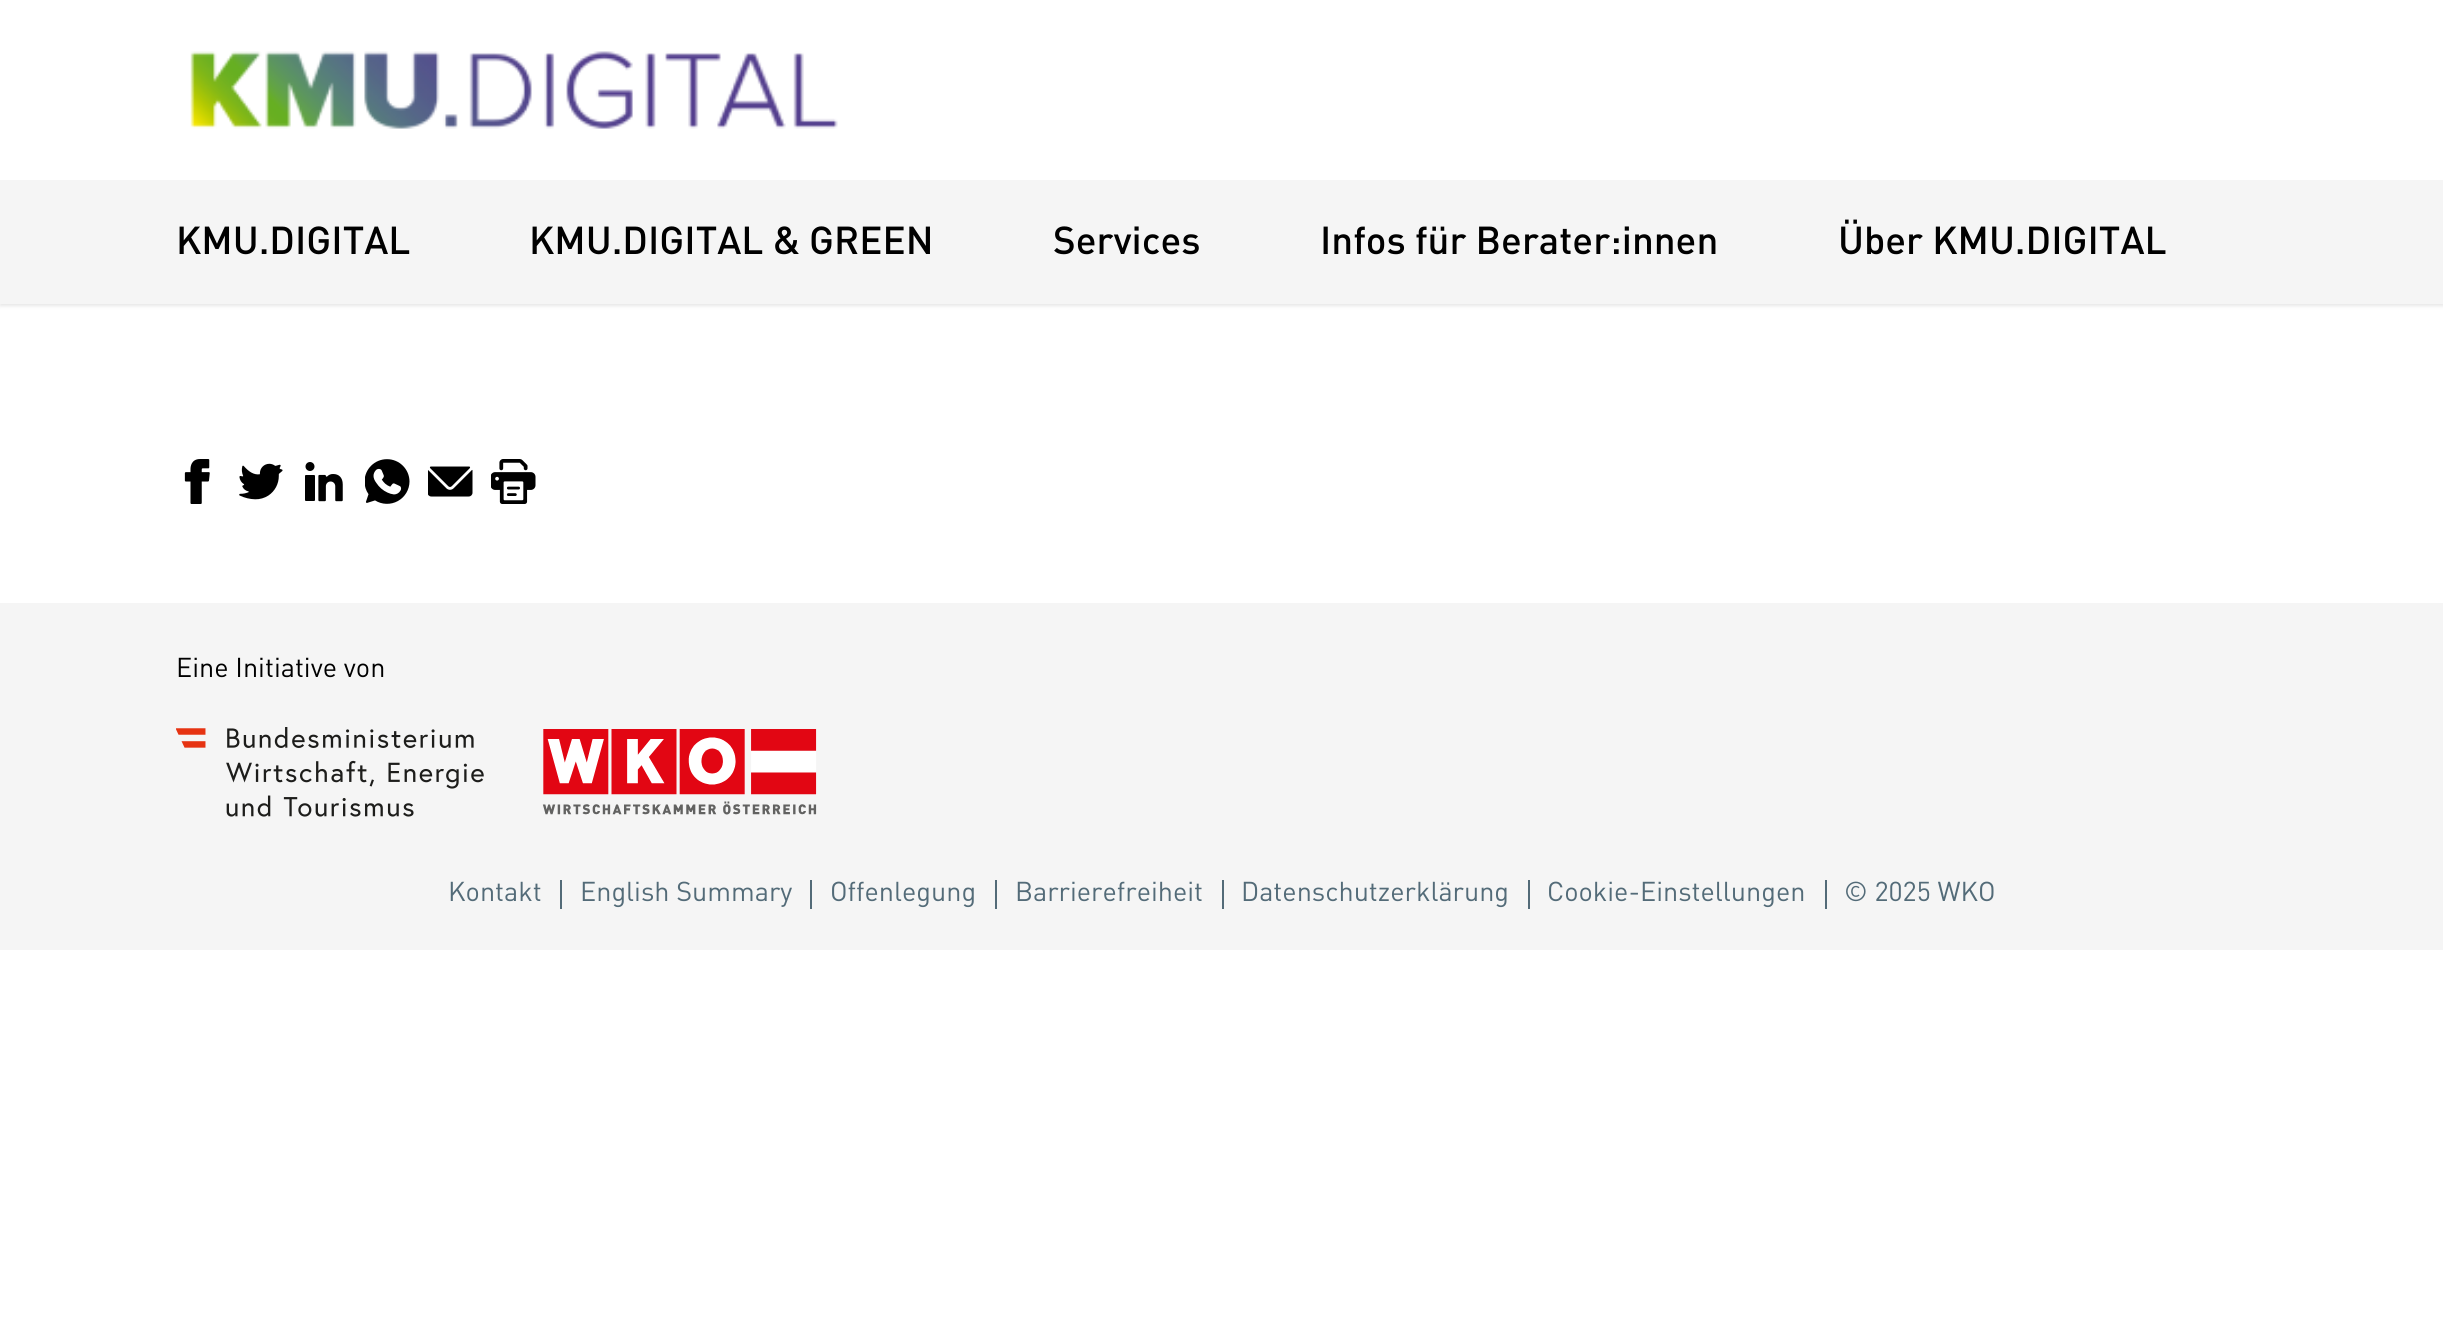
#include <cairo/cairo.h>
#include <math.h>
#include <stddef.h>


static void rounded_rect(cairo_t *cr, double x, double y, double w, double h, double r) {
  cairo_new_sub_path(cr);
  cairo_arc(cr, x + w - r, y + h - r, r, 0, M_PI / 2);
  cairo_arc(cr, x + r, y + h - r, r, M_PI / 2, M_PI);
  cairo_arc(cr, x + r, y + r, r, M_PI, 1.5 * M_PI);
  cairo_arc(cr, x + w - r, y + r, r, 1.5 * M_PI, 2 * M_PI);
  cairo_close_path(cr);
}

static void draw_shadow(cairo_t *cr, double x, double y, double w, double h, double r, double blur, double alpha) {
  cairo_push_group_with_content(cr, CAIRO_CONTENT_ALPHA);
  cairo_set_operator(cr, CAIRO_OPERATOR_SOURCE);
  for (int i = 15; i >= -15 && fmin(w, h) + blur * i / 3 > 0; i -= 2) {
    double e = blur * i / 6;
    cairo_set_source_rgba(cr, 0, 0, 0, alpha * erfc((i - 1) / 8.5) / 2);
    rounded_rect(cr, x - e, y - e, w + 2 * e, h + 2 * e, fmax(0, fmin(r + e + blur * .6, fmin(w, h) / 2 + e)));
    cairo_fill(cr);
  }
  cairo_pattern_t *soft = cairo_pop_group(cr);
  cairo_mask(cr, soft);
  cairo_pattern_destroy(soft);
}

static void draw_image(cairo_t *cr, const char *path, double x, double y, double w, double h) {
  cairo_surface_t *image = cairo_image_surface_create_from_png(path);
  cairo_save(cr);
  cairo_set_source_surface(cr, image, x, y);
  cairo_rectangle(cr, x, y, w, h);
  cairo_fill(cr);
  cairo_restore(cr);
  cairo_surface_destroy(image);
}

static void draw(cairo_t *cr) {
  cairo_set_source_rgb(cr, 1, 1, 1);
  cairo_paint(cr);
  cairo_set_source_rgb(cr, 0, 0, 0);
  draw_shadow(cr, 0, 2, 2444, 304, 0, 2, 0.1);
  cairo_set_source_rgb(cr, 1, 1, 1);
  cairo_rectangle(cr, 0, 0, 2443, 180);
  cairo_fill(cr);
  draw_image(cr, "images/1.png", 190, 51, 648, 78);
  cairo_set_source_rgb(cr, 245 / 255.0, 245 / 255.0, 245 / 255.0);
  cairo_rectangle(cr, 0, 180, 2443, 124);
  cairo_fill(cr);
  draw_image(cr, "images/2.png", 184, 459, 26, 45);
  draw_image(cr, "images/3.png", 239, 463, 44, 37);
  draw_image(cr, "images/4.png", 305, 462, 38, 40);
  draw_image(cr, "images/5.png", 365, 459, 45, 45);
  draw_image(cr, "images/6.png", 428, 466, 45, 31);
  draw_image(cr, "images/7.png", 491, 459, 45, 45);
  cairo_rectangle(cr, 0, 603, 2443, 347);
  cairo_fill(cr);
  draw_image(cr, "images/8.png", 176, 727, 308, 90);
  draw_image(cr, "images/9.png", 542, 729, 275, 86);
  cairo_set_source_rgb(cr, 83 / 255.0, 107 / 255.0, 120 / 255.0);
  cairo_rectangle(cr, 560, 880, 2, 29);
  cairo_fill(cr);
  cairo_rectangle(cr, 810, 880, 2, 29);
  cairo_fill(cr);
  cairo_rectangle(cr, 995, 880, 2, 29);
  cairo_fill(cr);
  cairo_rectangle(cr, 1222, 880, 2, 29);
  cairo_fill(cr);
  cairo_rectangle(cr, 1528, 880, 2, 29);
  cairo_fill(cr);
  cairo_rectangle(cr, 1825, 880, 2, 29);
  cairo_fill(cr);
  cairo_select_font_face(cr, "DIN Medium", CAIRO_FONT_SLANT_NORMAL, CAIRO_FONT_WEIGHT_NORMAL);
  cairo_set_font_size(cr, 38.5);
  cairo_set_source_rgb(cr, 0, 0, 0);
  cairo_move_to(cr, 176, 254);
  cairo_show_text(cr, "KMU.DIGITAL");
  cairo_move_to(cr, 529, 254);
  cairo_show_text(cr, "KMU.DIGITAL & GREEN");
  cairo_move_to(cr, 1053, 254);
  cairo_show_text(cr, "Services");
  cairo_move_to(cr, 1320, 254);
  cairo_show_text(cr, "Infos für Berater:innen");
  cairo_move_to(cr, 1838, 254);
  cairo_show_text(cr, "Über KMU.DIGITAL");
  cairo_select_font_face(cr, "DIN", CAIRO_FONT_SLANT_NORMAL, CAIRO_FONT_WEIGHT_NORMAL);
  cairo_set_font_size(cr, 27);
  cairo_move_to(cr, 176, 677);
  cairo_show_text(cr, "Eine Initiative von");
  cairo_set_source_rgb(cr, 83 / 255.0, 107 / 255.0, 120 / 255.0);
  cairo_move_to(cr, 448, 901);
  cairo_show_text(cr, "Kontakt");
  cairo_move_to(cr, 580, 901);
  cairo_show_text(cr, "English Summary");
  cairo_move_to(cr, 830, 901);
  cairo_show_text(cr, "Offenlegung");
  cairo_move_to(cr, 1015, 901);
  cairo_show_text(cr, "Barrierefreiheit");
  cairo_move_to(cr, 1241, 901);
  cairo_show_text(cr, "Datenschutzerklärung");
  cairo_move_to(cr, 1547, 901);
  cairo_show_text(cr, "Cookie-Einstellungen");
  cairo_move_to(cr, 1844, 901);
  cairo_show_text(cr, "© 2025 WKO");
}

int main(void) {
  cairo_surface_t *surface = cairo_image_surface_create(CAIRO_FORMAT_RGB24, 2443, 1319);
  cairo_t *cr = cairo_create(surface);
  cairo_font_options_t *options = cairo_font_options_create();
  cairo_font_options_set_hint_metrics(options, CAIRO_HINT_METRICS_OFF);
  cairo_font_options_set_hint_style(options, CAIRO_HINT_STYLE_NONE);
  cairo_set_font_options(cr, options);
  cairo_set_miter_limit(cr, 4);
  draw(cr);
  cairo_surface_write_to_png(surface, "out.png");
  cairo_font_options_destroy(options);
  cairo_destroy(cr);
  cairo_surface_destroy(surface);
  return 0;
}
